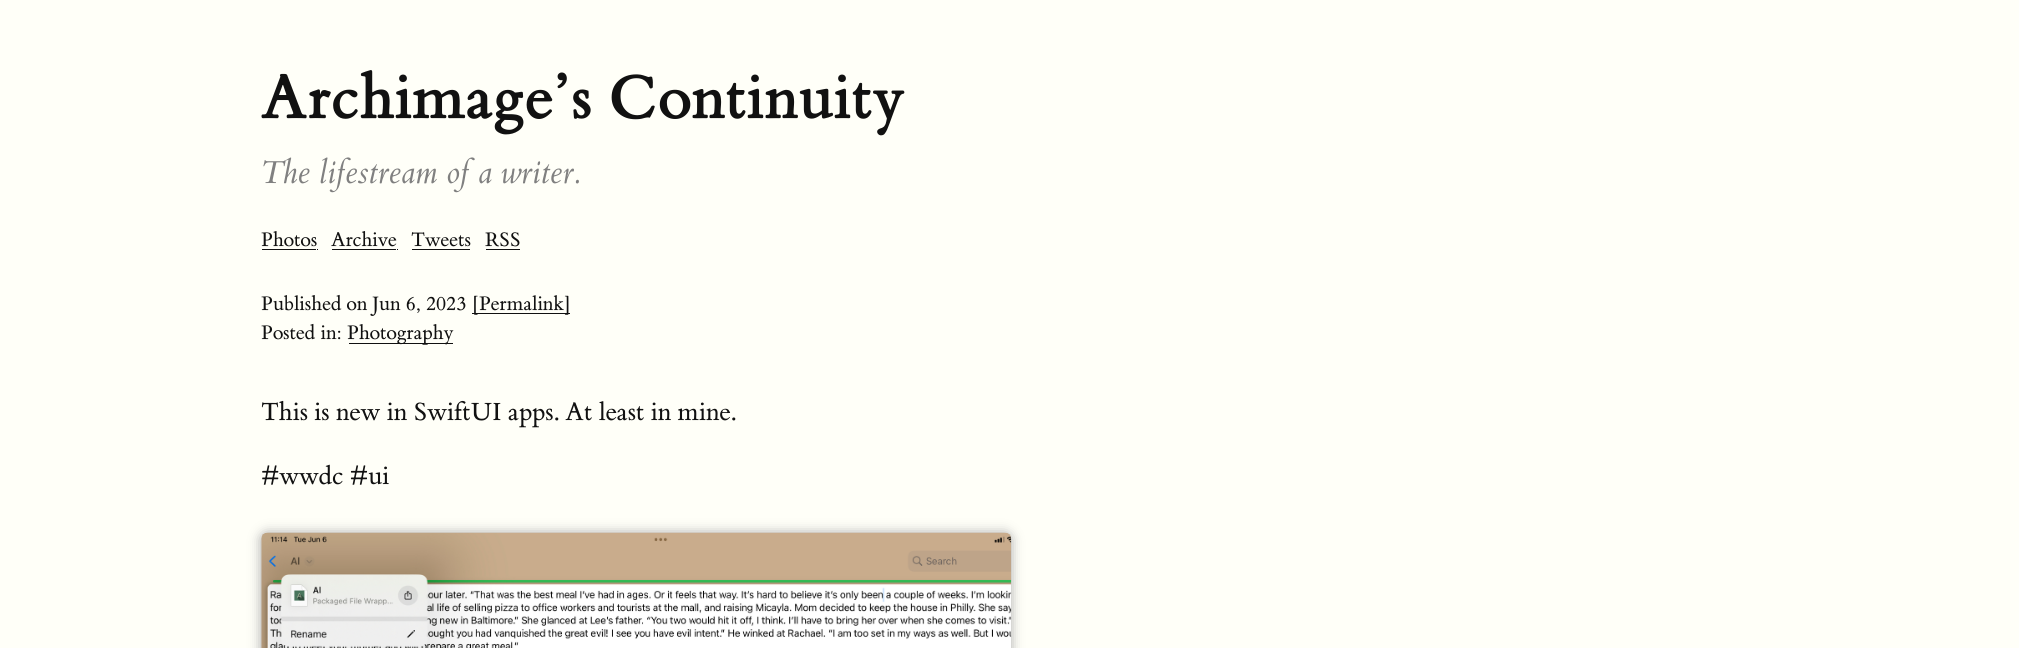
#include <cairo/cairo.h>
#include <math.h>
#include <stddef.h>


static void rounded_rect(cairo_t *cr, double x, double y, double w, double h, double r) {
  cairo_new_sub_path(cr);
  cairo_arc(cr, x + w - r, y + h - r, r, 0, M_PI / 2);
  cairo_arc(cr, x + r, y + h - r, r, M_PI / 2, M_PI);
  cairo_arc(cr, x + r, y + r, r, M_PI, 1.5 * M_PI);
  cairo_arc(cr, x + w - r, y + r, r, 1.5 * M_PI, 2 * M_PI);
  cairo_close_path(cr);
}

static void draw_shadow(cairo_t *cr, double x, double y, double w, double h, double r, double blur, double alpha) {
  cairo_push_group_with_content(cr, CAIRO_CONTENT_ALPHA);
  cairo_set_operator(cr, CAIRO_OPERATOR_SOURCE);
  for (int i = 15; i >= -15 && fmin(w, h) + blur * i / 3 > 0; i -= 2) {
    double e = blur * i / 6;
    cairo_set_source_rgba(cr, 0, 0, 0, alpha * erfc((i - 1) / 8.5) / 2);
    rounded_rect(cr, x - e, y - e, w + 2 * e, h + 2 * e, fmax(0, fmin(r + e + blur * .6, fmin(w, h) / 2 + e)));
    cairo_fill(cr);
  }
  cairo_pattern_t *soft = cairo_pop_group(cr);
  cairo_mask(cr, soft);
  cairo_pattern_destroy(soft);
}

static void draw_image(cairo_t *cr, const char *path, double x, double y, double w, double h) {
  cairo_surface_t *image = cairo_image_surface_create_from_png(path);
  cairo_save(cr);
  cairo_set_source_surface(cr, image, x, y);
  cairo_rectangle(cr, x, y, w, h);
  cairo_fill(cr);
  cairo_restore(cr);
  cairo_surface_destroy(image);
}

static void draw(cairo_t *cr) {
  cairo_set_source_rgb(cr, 1, 1, 248 / 255.0);
  cairo_paint(cr);
  cairo_set_source_rgb(cr, 17 / 255.0, 17 / 255.0, 17 / 255.0);
  cairo_rectangle(cr, 261, 249, 57, 1);
  cairo_fill(cr);
  cairo_set_source_rgb(cr, 1, 1, 248 / 255.0);
  cairo_rectangle(cr, 316, 249, 1, 1);
  cairo_fill(cr);
  cairo_rectangle(cr, 261, 249, 1, 1);
  cairo_fill(cr);
  cairo_set_source_rgb(cr, 17 / 255.0, 17 / 255.0, 17 / 255.0);
  cairo_rectangle(cr, 331, 249, 67, 1);
  cairo_fill(cr);
  cairo_set_source_rgb(cr, 1, 1, 248 / 255.0);
  cairo_rectangle(cr, 396, 249, 1, 1);
  cairo_fill(cr);
  cairo_rectangle(cr, 331, 249, 1, 1);
  cairo_fill(cr);
  cairo_set_source_rgb(cr, 17 / 255.0, 17 / 255.0, 17 / 255.0);
  cairo_rectangle(cr, 411, 249, 60, 1);
  cairo_fill(cr);
  cairo_set_source_rgb(cr, 1, 1, 248 / 255.0);
  cairo_rectangle(cr, 470, 249, 1, 1);
  cairo_fill(cr);
  cairo_rectangle(cr, 411, 249, 1, 1);
  cairo_fill(cr);
  cairo_set_source_rgb(cr, 17 / 255.0, 17 / 255.0, 17 / 255.0);
  cairo_rectangle(cr, 485, 249, 36, 1);
  cairo_fill(cr);
  cairo_set_source_rgb(cr, 1, 1, 248 / 255.0);
  cairo_rectangle(cr, 520, 249, 1, 1);
  cairo_fill(cr);
  cairo_rectangle(cr, 485, 249, 1, 1);
  cairo_fill(cr);
  cairo_set_source_rgb(cr, 17 / 255.0, 17 / 255.0, 17 / 255.0);
  cairo_rectangle(cr, 471, 313, 100, 1);
  cairo_fill(cr);
  cairo_set_source_rgb(cr, 1, 1, 248 / 255.0);
  cairo_rectangle(cr, 570, 313, 1, 1);
  cairo_fill(cr);
  cairo_rectangle(cr, 471, 313, 1, 1);
  cairo_fill(cr);
  cairo_set_source_rgb(cr, 17 / 255.0, 17 / 255.0, 17 / 255.0);
  cairo_rectangle(cr, 348, 343, 106, 1);
  cairo_fill(cr);
  cairo_set_source_rgb(cr, 1, 1, 248 / 255.0);
  cairo_rectangle(cr, 453, 343, 1, 1);
  cairo_fill(cr);
  cairo_rectangle(cr, 348, 343, 1, 1);
  cairo_fill(cr);
  cairo_set_source_rgb(cr, 169 / 255.0, 169 / 255.0, 169 / 255.0);
  draw_shadow(cr, 261, 533, 750, 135, 6, 6, 1);
  draw_image(cr, "images/1.png", 261, 532, 751, 116);
  cairo_select_font_face(cr, "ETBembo", CAIRO_FONT_SLANT_NORMAL, CAIRO_FONT_WEIGHT_BOLD);
  cairo_set_font_size(cr, 65.6);
  cairo_set_source_rgb(cr, 17 / 255.0, 17 / 255.0, 17 / 255.0);
  cairo_move_to(cr, 261, 118);
  cairo_show_text(cr, "Archimage’s Continuity");
  cairo_select_font_face(cr, "ETBembo", CAIRO_FONT_SLANT_ITALIC, CAIRO_FONT_WEIGHT_NORMAL);
  cairo_set_font_size(cr, 33.75);
  cairo_set_source_rgb(cr, 128 / 255.0, 128 / 255.0, 128 / 255.0);
  cairo_move_to(cr, 261, 183);
  cairo_show_text(cr, "The lifestream of a writer.");
  cairo_select_font_face(cr, "ETBembo", CAIRO_FONT_SLANT_NORMAL, CAIRO_FONT_WEIGHT_NORMAL);
  cairo_set_font_size(cr, 20.6);
  cairo_set_source_rgb(cr, 17 / 255.0, 17 / 255.0, 17 / 255.0);
  cairo_move_to(cr, 261, 246);
  cairo_show_text(cr, "Photos");
  cairo_move_to(cr, 331, 246);
  cairo_show_text(cr, "Archive");
  cairo_move_to(cr, 411, 246);
  cairo_show_text(cr, "Tweets");
  cairo_move_to(cr, 485, 246);
  cairo_show_text(cr, "RSS");
  cairo_move_to(cr, 261, 310);
  cairo_show_text(cr, "Published on Jun 6, 2023");
  cairo_move_to(cr, 472, 310);
  cairo_show_text(cr, "[Permalink]");
  cairo_move_to(cr, 261, 339);
  cairo_show_text(cr, "Posted in:");
  cairo_move_to(cr, 347, 339);
  cairo_show_text(cr, "Photography");
  cairo_set_font_size(cr, 26.25);
  cairo_move_to(cr, 261, 420);
  cairo_show_text(cr, "This is new in SwiftUI apps. At least in mine.");
  cairo_move_to(cr, 261, 484);
  cairo_show_text(cr, "#wwdc #ui");
}

int main(void) {
  cairo_surface_t *surface = cairo_image_surface_create(CAIRO_FORMAT_RGB24, 2019, 648);
  cairo_t *cr = cairo_create(surface);
  cairo_font_options_t *options = cairo_font_options_create();
  cairo_font_options_set_hint_metrics(options, CAIRO_HINT_METRICS_OFF);
  cairo_font_options_set_hint_style(options, CAIRO_HINT_STYLE_NONE);
  cairo_set_font_options(cr, options);
  cairo_set_miter_limit(cr, 4);
  draw(cr);
  cairo_surface_write_to_png(surface, "out.png");
  cairo_font_options_destroy(options);
  cairo_destroy(cr);
  cairo_surface_destroy(surface);
  return 0;
}
